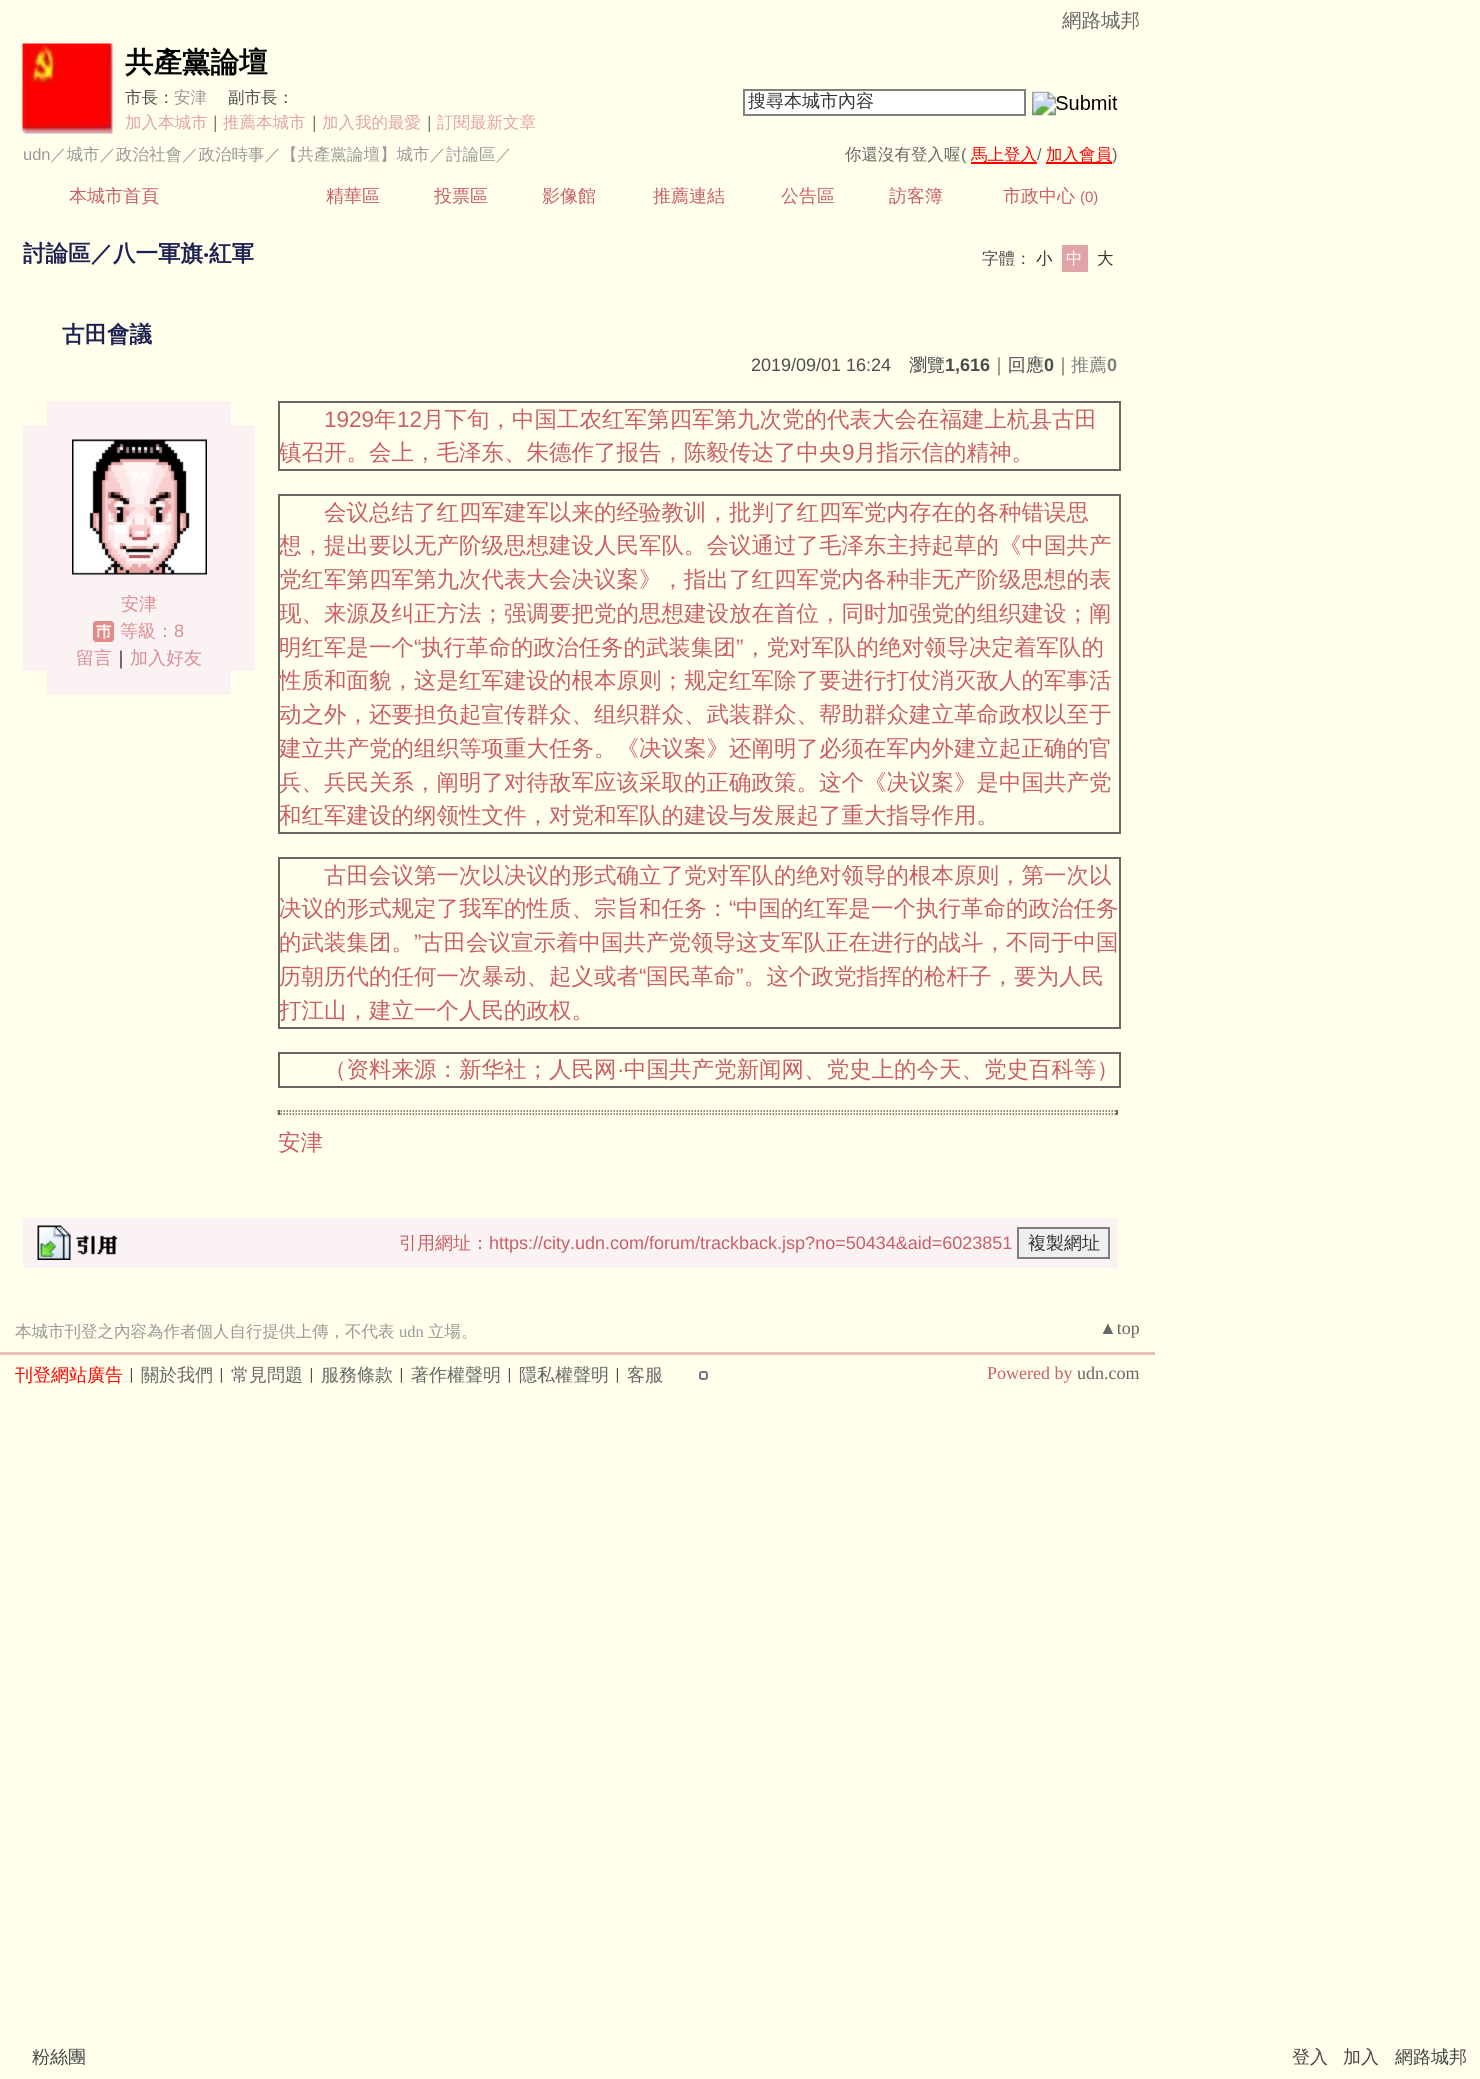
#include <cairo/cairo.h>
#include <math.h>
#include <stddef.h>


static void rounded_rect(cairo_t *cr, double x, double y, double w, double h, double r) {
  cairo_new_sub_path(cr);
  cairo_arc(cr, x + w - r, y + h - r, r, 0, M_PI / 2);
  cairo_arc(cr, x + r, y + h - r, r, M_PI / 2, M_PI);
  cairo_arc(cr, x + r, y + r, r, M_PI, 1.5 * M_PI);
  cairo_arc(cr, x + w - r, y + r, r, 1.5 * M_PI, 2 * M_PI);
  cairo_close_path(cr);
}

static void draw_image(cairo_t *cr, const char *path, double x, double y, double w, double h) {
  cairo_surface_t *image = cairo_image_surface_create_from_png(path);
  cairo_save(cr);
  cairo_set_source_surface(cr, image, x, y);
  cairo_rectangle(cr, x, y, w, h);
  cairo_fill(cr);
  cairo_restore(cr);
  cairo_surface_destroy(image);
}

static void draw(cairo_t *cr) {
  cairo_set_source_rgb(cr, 1, 1, 235 / 255.0);
  cairo_paint(cr);
  draw_image(cr, "images/1.png", 22, 43, 91, 91);
  cairo_set_source_rgb(cr, 1, 1, 1);
  cairo_rectangle(cr, 744, 90, 281, 25);
  cairo_fill_preserve(cr);
  cairo_set_source_rgb(cr, 128 / 255.0, 128 / 255.0, 128 / 255.0);
  cairo_stroke(cr);
  draw_image(cr, "images/2.png", 1032, 91, 86, 25);
  cairo_set_source_rgb(cr, 1, 0, 0);
  cairo_rectangle(cr, 971, 162, 66, 2);
  cairo_fill(cr);
  cairo_rectangle(cr, 1046, 162, 66, 2);
  cairo_fill(cr);
  cairo_set_source_rgb(cr, 224 / 255.0, 163 / 255.0, 167 / 255.0);
  cairo_rectangle(cr, 1062, 245, 26, 27);
  cairo_fill(cr);
  cairo_set_source_rgb(cr, 251 / 255.0, 242 / 255.0, 243 / 255.0);
  cairo_rectangle(cr, 47, 401, 184, 24);
  cairo_fill(cr);
  cairo_rectangle(cr, 23, 425, 232, 246);
  cairo_fill(cr);
  draw_image(cr, "images/3.png", 72, 439, 135, 136);
  draw_image(cr, "images/4.png", 93, 621, 21, 21);
  cairo_rectangle(cr, 47, 671, 184, 24);
  cairo_fill(cr);
  cairo_rectangle(cr, 279, 402, 841, 68);
  cairo_set_source_rgb(cr, 102 / 255.0, 102 / 255.0, 102 / 255.0);
  cairo_stroke(cr);
  cairo_rectangle(cr, 279, 495, 841, 338);
  cairo_stroke(cr);
  cairo_rectangle(cr, 279, 858, 841, 170);
  cairo_stroke(cr);
  cairo_rectangle(cr, 279, 1053, 841, 34);
  cairo_stroke(cr);
  cairo_new_path(cr);
  cairo_move_to(cr, 277.5, 1111);
  cairo_line_to(cr, 1117.5, 1111);
  cairo_set_line_width(cr, 1.5);
  cairo_set_dash(cr, (double[]){1.5, 1.5}, 2, 0);
  cairo_stroke(cr);
  cairo_rectangle(cr, 1116, 1110, 2, 5);
  cairo_fill(cr);
  cairo_new_path(cr);
  cairo_move_to(cr, 277.5, 1114);
  cairo_line_to(cr, 1117.5, 1114);
  cairo_stroke(cr);
  cairo_rectangle(cr, 278, 1110, 2, 5);
  cairo_fill(cr);
  cairo_set_source_rgb(cr, 251 / 255.0, 242 / 255.0, 243 / 255.0);
  cairo_rectangle(cr, 23, 1218, 1095, 50);
  cairo_fill(cr);
  draw_image(cr, "images/5.png", 37, 1225, 80, 35);
  cairo_set_source_rgb(cr, 239 / 255.0, 239 / 255.0, 239 / 255.0);
  cairo_rectangle(cr, 1018, 1228, 91, 30);
  cairo_fill_preserve(cr);
  cairo_set_source_rgb(cr, 128 / 255.0, 128 / 255.0, 128 / 255.0);
  cairo_set_line_width(cr, 2);
  cairo_set_dash(cr, NULL, 0, 0);
  cairo_stroke(cr);
  cairo_set_source_rgb(cr, 232 / 255.0, 187 / 255.0, 189 / 255.0);
  cairo_rectangle(cr, 0, 1352, 1155, 3);
  cairo_fill(cr);
  cairo_set_source_rgb(cr, 1, 1, 1);
  rounded_rect(cr, 700, 1372, 7, 7, 2);
  cairo_fill_preserve(cr);
  cairo_set_source_rgb(cr, 118 / 255.0, 118 / 255.0, 118 / 255.0);
  cairo_stroke(cr);
  cairo_select_font_face(cr, "WenQuanYi Zen Hei Medium", CAIRO_FONT_SLANT_NORMAL, CAIRO_FONT_WEIGHT_NORMAL);
  cairo_set_font_size(cr, 19.5);
  cairo_set_source_rgb(cr, 102 / 255.0, 102 / 255.0, 102 / 255.0);
  cairo_move_to(cr, 1062, 27);
  cairo_show_text(cr, "網路城邦");
  cairo_select_font_face(cr, "WenQuanYi Zen Hei", CAIRO_FONT_SLANT_NORMAL, CAIRO_FONT_WEIGHT_BOLD);
  cairo_set_font_size(cr, 28.5);
  cairo_set_source_rgb(cr, 0, 0, 0);
  cairo_move_to(cr, 125, 72);
  cairo_show_text(cr, "共產黨論壇");
  cairo_select_font_face(cr, "WenQuanYi Zen Hei Medium", CAIRO_FONT_SLANT_NORMAL, CAIRO_FONT_WEIGHT_NORMAL);
  cairo_set_font_size(cr, 16.5);
  cairo_set_source_rgb(cr, 77 / 255.0, 77 / 255.0, 77 / 255.0);
  cairo_move_to(cr, 125, 103);
  cairo_show_text(cr, "市長：");
  cairo_set_source_rgb(cr, 153 / 255.0, 153 / 255.0, 153 / 255.0);
  cairo_move_to(cr, 174, 103);
  cairo_show_text(cr, "安津");
  cairo_set_source_rgb(cr, 77 / 255.0, 77 / 255.0, 77 / 255.0);
  cairo_move_to(cr, 228, 103);
  cairo_show_text(cr, "副市長：");
  cairo_set_source_rgb(cr, 224 / 255.0, 163 / 255.0, 167 / 255.0);
  cairo_move_to(cr, 125, 128);
  cairo_show_text(cr, "加入本城市");
  cairo_set_source_rgb(cr, 77 / 255.0, 77 / 255.0, 77 / 255.0);
  cairo_move_to(cr, 207, 128);
  cairo_show_text(cr, "｜");
  cairo_set_source_rgb(cr, 224 / 255.0, 163 / 255.0, 167 / 255.0);
  cairo_move_to(cr, 223, 128);
  cairo_show_text(cr, "推薦本城市");
  cairo_set_source_rgb(cr, 77 / 255.0, 77 / 255.0, 77 / 255.0);
  cairo_move_to(cr, 306, 128);
  cairo_show_text(cr, "｜");
  cairo_set_source_rgb(cr, 224 / 255.0, 163 / 255.0, 167 / 255.0);
  cairo_move_to(cr, 322, 128);
  cairo_show_text(cr, "加入我的最愛");
  cairo_set_source_rgb(cr, 77 / 255.0, 77 / 255.0, 77 / 255.0);
  cairo_move_to(cr, 421, 128);
  cairo_show_text(cr, "｜");
  cairo_set_source_rgb(cr, 224 / 255.0, 163 / 255.0, 167 / 255.0);
  cairo_move_to(cr, 437, 128);
  cairo_show_text(cr, "訂閱最新文章");
  cairo_set_font_size(cr, 18);
  cairo_set_source_rgb(cr, 51 / 255.0, 51 / 255.0, 51 / 255.0);
  cairo_move_to(cr, 748, 107);
  cairo_show_text(cr, "搜尋本城市內容");
  cairo_select_font_face(cr, "Liberation Sans", CAIRO_FONT_SLANT_NORMAL, CAIRO_FONT_WEIGHT_NORMAL);
  cairo_set_font_size(cr, 16.5);
  cairo_set_source_rgb(cr, 153 / 255.0, 153 / 255.0, 153 / 255.0);
  cairo_move_to(cr, 23, 160);
  cairo_show_text(cr, "udn");
  cairo_select_font_face(cr, "WenQuanYi Zen Hei Medium", CAIRO_FONT_SLANT_NORMAL, CAIRO_FONT_WEIGHT_NORMAL);
  cairo_move_to(cr, 50, 160);
  cairo_show_text(cr, "／城市／政治社會／政治時事／【共產黨論壇】城市／討論區／");
  cairo_set_source_rgb(cr, 102 / 255.0, 102 / 255.0, 102 / 255.0);
  cairo_move_to(cr, 845, 160);
  cairo_show_text(cr, "你還沒有登入喔");
  cairo_select_font_face(cr, "Liberation Sans", CAIRO_FONT_SLANT_NORMAL, CAIRO_FONT_WEIGHT_NORMAL);
  cairo_move_to(cr, 961, 160);
  cairo_show_text(cr, "(");
  cairo_select_font_face(cr, "WenQuanYi Zen Hei Medium", CAIRO_FONT_SLANT_NORMAL, CAIRO_FONT_WEIGHT_NORMAL);
  cairo_set_source_rgb(cr, 1, 0, 0);
  cairo_move_to(cr, 971, 160);
  cairo_show_text(cr, "馬上登入");
  cairo_select_font_face(cr, "Liberation Sans", CAIRO_FONT_SLANT_NORMAL, CAIRO_FONT_WEIGHT_NORMAL);
  cairo_set_source_rgb(cr, 102 / 255.0, 102 / 255.0, 102 / 255.0);
  cairo_move_to(cr, 1037, 160);
  cairo_show_text(cr, "/");
  cairo_select_font_face(cr, "WenQuanYi Zen Hei Medium", CAIRO_FONT_SLANT_NORMAL, CAIRO_FONT_WEIGHT_NORMAL);
  cairo_set_source_rgb(cr, 1, 0, 0);
  cairo_move_to(cr, 1046, 160);
  cairo_show_text(cr, "加入會員");
  cairo_select_font_face(cr, "Liberation Sans", CAIRO_FONT_SLANT_NORMAL, CAIRO_FONT_WEIGHT_NORMAL);
  cairo_set_source_rgb(cr, 102 / 255.0, 102 / 255.0, 102 / 255.0);
  cairo_move_to(cr, 1112, 160);
  cairo_show_text(cr, ")");
  cairo_select_font_face(cr, "WenQuanYi Zen Hei Medium", CAIRO_FONT_SLANT_NORMAL, CAIRO_FONT_WEIGHT_NORMAL);
  cairo_set_font_size(cr, 18);
  cairo_set_source_rgb(cr, 201 / 255.0, 95 / 255.0, 101 / 255.0);
  cairo_move_to(cr, 69, 202);
  cairo_show_text(cr, "本城市首頁");
  cairo_move_to(cr, 326, 202);
  cairo_show_text(cr, "精華區");
  cairo_move_to(cr, 434, 202);
  cairo_show_text(cr, "投票區");
  cairo_move_to(cr, 542, 202);
  cairo_show_text(cr, "影像館");
  cairo_move_to(cr, 653, 202);
  cairo_show_text(cr, "推薦連結");
  cairo_move_to(cr, 781, 202);
  cairo_show_text(cr, "公告區");
  cairo_move_to(cr, 889, 202);
  cairo_show_text(cr, "訪客簿");
  cairo_move_to(cr, 1003, 202);
  cairo_show_text(cr, "市政中心");
  cairo_select_font_face(cr, "Liberation Sans", CAIRO_FONT_SLANT_NORMAL, CAIRO_FONT_WEIGHT_NORMAL);
  cairo_set_font_size(cr, 15);
  cairo_move_to(cr, 1080, 202);
  cairo_show_text(cr, "(0)");
  cairo_select_font_face(cr, "WenQuanYi Zen Hei", CAIRO_FONT_SLANT_NORMAL, CAIRO_FONT_WEIGHT_BOLD);
  cairo_set_font_size(cr, 22.5);
  cairo_set_source_rgb(cr, 30 / 255.0, 33 / 255.0, 83 / 255.0);
  cairo_move_to(cr, 23, 261);
  cairo_show_text(cr, "討論區／八一軍旗");
  cairo_select_font_face(cr, "Noto Sans", CAIRO_FONT_SLANT_NORMAL, CAIRO_FONT_WEIGHT_BOLD);
  cairo_move_to(cr, 203, 261);
  cairo_show_text(cr, "‧");
  cairo_select_font_face(cr, "WenQuanYi Zen Hei", CAIRO_FONT_SLANT_NORMAL, CAIRO_FONT_WEIGHT_BOLD);
  cairo_move_to(cr, 209, 261);
  cairo_show_text(cr, "紅軍");
  cairo_select_font_face(cr, "WenQuanYi Zen Hei Medium", CAIRO_FONT_SLANT_NORMAL, CAIRO_FONT_WEIGHT_NORMAL);
  cairo_set_font_size(cr, 16.5);
  cairo_set_source_rgb(cr, 77 / 255.0, 77 / 255.0, 77 / 255.0);
  cairo_move_to(cr, 982, 264);
  cairo_show_text(cr, "字體：");
  cairo_set_source_rgb(cr, 51 / 255.0, 51 / 255.0, 51 / 255.0);
  cairo_move_to(cr, 1036, 264);
  cairo_show_text(cr, "小");
  cairo_set_source_rgb(cr, 1, 1, 1);
  cairo_move_to(cr, 1066, 264);
  cairo_show_text(cr, "中");
  cairo_set_source_rgb(cr, 51 / 255.0, 51 / 255.0, 51 / 255.0);
  cairo_move_to(cr, 1097, 264);
  cairo_show_text(cr, "大");
  cairo_select_font_face(cr, "WenQuanYi Zen Hei", CAIRO_FONT_SLANT_NORMAL, CAIRO_FONT_WEIGHT_BOLD);
  cairo_set_font_size(cr, 22.5);
  cairo_set_source_rgb(cr, 30 / 255.0, 33 / 255.0, 83 / 255.0);
  cairo_move_to(cr, 62, 342);
  cairo_show_text(cr, "古田會議");
  cairo_select_font_face(cr, "Liberation Sans", CAIRO_FONT_SLANT_NORMAL, CAIRO_FONT_WEIGHT_NORMAL);
  cairo_set_font_size(cr, 18);
  cairo_set_source_rgb(cr, 77 / 255.0, 77 / 255.0, 77 / 255.0);
  cairo_move_to(cr, 751, 371);
  cairo_show_text(cr, "2019/09/01 16:24");
  cairo_select_font_face(cr, "WenQuanYi Zen Hei Medium", CAIRO_FONT_SLANT_NORMAL, CAIRO_FONT_WEIGHT_NORMAL);
  cairo_move_to(cr, 909, 371);
  cairo_show_text(cr, "瀏覽");
  cairo_select_font_face(cr, "Liberation Sans", CAIRO_FONT_SLANT_NORMAL, CAIRO_FONT_WEIGHT_BOLD);
  cairo_move_to(cr, 945, 371);
  cairo_show_text(cr, "1,616");
  cairo_select_font_face(cr, "WenQuanYi Zen Hei Medium", CAIRO_FONT_SLANT_NORMAL, CAIRO_FONT_WEIGHT_NORMAL);
  cairo_move_to(cr, 990, 371);
  cairo_show_text(cr, "｜回應");
  cairo_select_font_face(cr, "Liberation Sans", CAIRO_FONT_SLANT_NORMAL, CAIRO_FONT_WEIGHT_BOLD);
  cairo_move_to(cr, 1044, 371);
  cairo_show_text(cr, "0");
  cairo_select_font_face(cr, "WenQuanYi Zen Hei Medium", CAIRO_FONT_SLANT_NORMAL, CAIRO_FONT_WEIGHT_NORMAL);
  cairo_move_to(cr, 1054, 371);
  cairo_show_text(cr, "｜");
  cairo_set_source_rgb(cr, 128 / 255.0, 128 / 255.0, 128 / 255.0);
  cairo_move_to(cr, 1071, 371);
  cairo_show_text(cr, "推薦");
  cairo_select_font_face(cr, "Liberation Sans", CAIRO_FONT_SLANT_NORMAL, CAIRO_FONT_WEIGHT_BOLD);
  cairo_move_to(cr, 1107, 371);
  cairo_show_text(cr, "0");
  cairo_select_font_face(cr, "WenQuanYi Zen Hei Medium", CAIRO_FONT_SLANT_NORMAL, CAIRO_FONT_WEIGHT_NORMAL);
  cairo_set_source_rgb(cr, 217 / 255.0, 141 / 255.0, 145 / 255.0);
  cairo_move_to(cr, 121, 610);
  cairo_show_text(cr, "安津");
  cairo_move_to(cr, 120, 637);
  cairo_show_text(cr, "等級：");
  cairo_select_font_face(cr, "Liberation Sans", CAIRO_FONT_SLANT_NORMAL, CAIRO_FONT_WEIGHT_NORMAL);
  cairo_move_to(cr, 174, 637);
  cairo_show_text(cr, "8");
  cairo_select_font_face(cr, "WenQuanYi Zen Hei Medium", CAIRO_FONT_SLANT_NORMAL, CAIRO_FONT_WEIGHT_NORMAL);
  cairo_move_to(cr, 76, 664);
  cairo_show_text(cr, "留言");
  cairo_set_source_rgb(cr, 0, 0, 0);
  cairo_move_to(cr, 112, 664);
  cairo_show_text(cr, "｜");
  cairo_set_source_rgb(cr, 217 / 255.0, 141 / 255.0, 145 / 255.0);
  cairo_move_to(cr, 130, 664);
  cairo_show_text(cr, "加入好友");
  cairo_select_font_face(cr, "Liberation Sans", CAIRO_FONT_SLANT_NORMAL, CAIRO_FONT_WEIGHT_NORMAL);
  cairo_set_font_size(cr, 22.5);
  cairo_set_source_rgb(cr, 201 / 255.0, 95 / 255.0, 101 / 255.0);
  cairo_move_to(cr, 324, 427);
  cairo_show_text(cr, "1929");
  cairo_select_font_face(cr, "WenQuanYi Zen Hei Medium", CAIRO_FONT_SLANT_NORMAL, CAIRO_FONT_WEIGHT_NORMAL);
  cairo_move_to(cr, 374, 427);
  cairo_show_text(cr, "年");
  cairo_select_font_face(cr, "Liberation Sans", CAIRO_FONT_SLANT_NORMAL, CAIRO_FONT_WEIGHT_NORMAL);
  cairo_move_to(cr, 397, 427);
  cairo_show_text(cr, "12");
  cairo_select_font_face(cr, "WenQuanYi Zen Hei Medium", CAIRO_FONT_SLANT_NORMAL, CAIRO_FONT_WEIGHT_NORMAL);
  cairo_move_to(cr, 422, 427);
  cairo_show_text(cr, "月下旬，中国工农红军第四军第九次党的代表大会在福建上杭县古田");
  cairo_move_to(cr, 279, 460);
  cairo_show_text(cr, "镇召开。会上，毛泽东、朱德作了报告，陈毅传达了中央");
  cairo_select_font_face(cr, "Liberation Sans", CAIRO_FONT_SLANT_NORMAL, CAIRO_FONT_WEIGHT_NORMAL);
  cairo_move_to(cr, 842, 460);
  cairo_show_text(cr, "9");
  cairo_select_font_face(cr, "WenQuanYi Zen Hei Medium", CAIRO_FONT_SLANT_NORMAL, CAIRO_FONT_WEIGHT_NORMAL);
  cairo_move_to(cr, 854, 460);
  cairo_show_text(cr, "月指示信的精神。");
  cairo_move_to(cr, 324, 520);
  cairo_show_text(cr, "会议总结了红四军建军以来的经验教训，批判了红四军党内存在的各种错误思");
  cairo_move_to(cr, 279, 553);
  cairo_show_text(cr, "想，提出要以无产阶级思想建设人民军队。会议通过了毛泽东主持起草的《中国共产");
  cairo_move_to(cr, 279, 587);
  cairo_show_text(cr, "党红军第四军第九次代表大会决议案》，指出了红四军党内各种非无产阶级思想的表");
  cairo_move_to(cr, 279, 621);
  cairo_show_text(cr, "现、来源及纠正方法；强调要把党的思想建设放在首位，同时加强党的组织建设；阐");
  cairo_move_to(cr, 279, 655);
  cairo_show_text(cr, "明红军是一个");
  cairo_select_font_face(cr, "Liberation Sans", CAIRO_FONT_SLANT_NORMAL, CAIRO_FONT_WEIGHT_NORMAL);
  cairo_move_to(cr, 414, 655);
  cairo_show_text(cr, "“");
  cairo_select_font_face(cr, "WenQuanYi Zen Hei Medium", CAIRO_FONT_SLANT_NORMAL, CAIRO_FONT_WEIGHT_NORMAL);
  cairo_move_to(cr, 421, 655);
  cairo_show_text(cr, "执行革命的政治任务的武装集团");
  cairo_select_font_face(cr, "Liberation Sans", CAIRO_FONT_SLANT_NORMAL, CAIRO_FONT_WEIGHT_NORMAL);
  cairo_move_to(cr, 736, 655);
  cairo_show_text(cr, "”");
  cairo_select_font_face(cr, "WenQuanYi Zen Hei Medium", CAIRO_FONT_SLANT_NORMAL, CAIRO_FONT_WEIGHT_NORMAL);
  cairo_move_to(cr, 744, 655);
  cairo_show_text(cr, "，党对军队的绝对领导决定着军队的");
  cairo_move_to(cr, 279, 688);
  cairo_show_text(cr, "性质和面貌，这是红军建设的根本原则；规定红军除了要进行打仗消灭敌人的军事活");
  cairo_move_to(cr, 279, 722);
  cairo_show_text(cr, "动之外，还要担负起宣传群众、组织群众、武装群众、帮助群众建立革命政权以至于");
  cairo_move_to(cr, 279, 756);
  cairo_show_text(cr, "建立共产党的组织等项重大任务。《决议案》还阐明了必须在军内外建立起正确的官");
  cairo_move_to(cr, 279, 790);
  cairo_show_text(cr, "兵、兵民关系，阐明了对待敌军应该采取的正确政策。这个《决议案》是中国共产党");
  cairo_move_to(cr, 279, 823);
  cairo_show_text(cr, "和红军建设的纲领性文件，对党和军队的建设与发展起了重大指导作用。");
  cairo_move_to(cr, 324, 883);
  cairo_show_text(cr, "古田会议第一次以决议的形式确立了党对军队的绝对领导的根本原则，第一次以");
  cairo_move_to(cr, 279, 916);
  cairo_show_text(cr, "决议的形式规定了我军的性质、宗旨和任务：");
  cairo_select_font_face(cr, "Liberation Sans", CAIRO_FONT_SLANT_NORMAL, CAIRO_FONT_WEIGHT_NORMAL);
  cairo_move_to(cr, 729, 916);
  cairo_show_text(cr, "“");
  cairo_select_font_face(cr, "WenQuanYi Zen Hei Medium", CAIRO_FONT_SLANT_NORMAL, CAIRO_FONT_WEIGHT_NORMAL);
  cairo_move_to(cr, 736, 916);
  cairo_show_text(cr, "中国的红军是一个执行革命的政治任务");
  cairo_move_to(cr, 279, 950);
  cairo_show_text(cr, "的武装集团。");
  cairo_select_font_face(cr, "Liberation Sans", CAIRO_FONT_SLANT_NORMAL, CAIRO_FONT_WEIGHT_NORMAL);
  cairo_move_to(cr, 414, 950);
  cairo_show_text(cr, "”");
  cairo_select_font_face(cr, "WenQuanYi Zen Hei Medium", CAIRO_FONT_SLANT_NORMAL, CAIRO_FONT_WEIGHT_NORMAL);
  cairo_move_to(cr, 421, 950);
  cairo_show_text(cr, "古田会议宣示着中国共产党领导这支军队正在进行的战斗，不同于中国");
  cairo_move_to(cr, 279, 984);
  cairo_show_text(cr, "历朝历代的任何一次暴动、起义或者");
  cairo_select_font_face(cr, "Liberation Sans", CAIRO_FONT_SLANT_NORMAL, CAIRO_FONT_WEIGHT_NORMAL);
  cairo_move_to(cr, 639, 984);
  cairo_show_text(cr, "“");
  cairo_select_font_face(cr, "WenQuanYi Zen Hei Medium", CAIRO_FONT_SLANT_NORMAL, CAIRO_FONT_WEIGHT_NORMAL);
  cairo_move_to(cr, 646, 984);
  cairo_show_text(cr, "国民革命");
  cairo_select_font_face(cr, "Liberation Sans", CAIRO_FONT_SLANT_NORMAL, CAIRO_FONT_WEIGHT_NORMAL);
  cairo_move_to(cr, 736, 984);
  cairo_show_text(cr, "”");
  cairo_select_font_face(cr, "WenQuanYi Zen Hei Medium", CAIRO_FONT_SLANT_NORMAL, CAIRO_FONT_WEIGHT_NORMAL);
  cairo_move_to(cr, 744, 984);
  cairo_show_text(cr, "。这个政党指挥的枪杆子，要为人民");
  cairo_move_to(cr, 279, 1018);
  cairo_show_text(cr, "打江山，建立一个人民的政权。");
  cairo_move_to(cr, 324, 1077);
  cairo_show_text(cr, "（资料来源：新华社；人民网");
  cairo_select_font_face(cr, "Liberation Sans", CAIRO_FONT_SLANT_NORMAL, CAIRO_FONT_WEIGHT_NORMAL);
  cairo_move_to(cr, 617, 1077);
  cairo_show_text(cr, "·");
  cairo_select_font_face(cr, "WenQuanYi Zen Hei Medium", CAIRO_FONT_SLANT_NORMAL, CAIRO_FONT_WEIGHT_NORMAL);
  cairo_move_to(cr, 624, 1077);
  cairo_show_text(cr, "中国共产党新闻网、党史上的今天、党史百科等）");
  cairo_move_to(cr, 278, 1150);
  cairo_show_text(cr, "安津");
  cairo_set_font_size(cr, 18);
  cairo_move_to(cr, 399, 1249);
  cairo_show_text(cr, "引用網址：");
  cairo_select_font_face(cr, "Liberation Sans", CAIRO_FONT_SLANT_NORMAL, CAIRO_FONT_WEIGHT_NORMAL);
  cairo_move_to(cr, 489, 1249);
  cairo_show_text(cr, "https://city.udn.com/forum/trackback.jsp?no=50434&aid=6023851");
  cairo_select_font_face(cr, "WenQuanYi Zen Hei Medium", CAIRO_FONT_SLANT_NORMAL, CAIRO_FONT_WEIGHT_NORMAL);
  cairo_set_source_rgb(cr, 51 / 255.0, 51 / 255.0, 51 / 255.0);
  cairo_move_to(cr, 1028, 1249);
  cairo_show_text(cr, "複製網址");
  cairo_set_font_size(cr, 16.5);
  cairo_set_source_rgb(cr, 153 / 255.0, 153 / 255.0, 153 / 255.0);
  cairo_move_to(cr, 15, 1337);
  cairo_show_text(cr, "本城市刊登之內容為作者個人自行提供上傳，不代表");
  cairo_select_font_face(cr, "Liberation Serif", CAIRO_FONT_SLANT_NORMAL, CAIRO_FONT_WEIGHT_NORMAL);
  cairo_move_to(cr, 399, 1337);
  cairo_show_text(cr, "udn");
  cairo_select_font_face(cr, "WenQuanYi Zen Hei Medium", CAIRO_FONT_SLANT_NORMAL, CAIRO_FONT_WEIGHT_NORMAL);
  cairo_move_to(cr, 428, 1337);
  cairo_show_text(cr, "立場。");
  cairo_select_font_face(cr, "Liberation Serif", CAIRO_FONT_SLANT_NORMAL, CAIRO_FONT_WEIGHT_NORMAL);
  cairo_set_font_size(cr, 18);
  cairo_set_source_rgb(cr, 102 / 255.0, 102 / 255.0, 102 / 255.0);
  cairo_move_to(cr, 1099, 1334);
  cairo_show_text(cr, "▲top");
  cairo_select_font_face(cr, "WenQuanYi Zen Hei Medium", CAIRO_FONT_SLANT_NORMAL, CAIRO_FONT_WEIGHT_NORMAL);
  cairo_set_source_rgb(cr, 1, 0, 0);
  cairo_move_to(cr, 15, 1381);
  cairo_show_text(cr, "刊登網站廣告");
  cairo_set_source_rgb(cr, 0, 0, 0);
  cairo_move_to(cr, 123, 1381);
  cairo_show_text(cr, "︱");
  cairo_set_source_rgb(cr, 102 / 255.0, 102 / 255.0, 102 / 255.0);
  cairo_move_to(cr, 141, 1381);
  cairo_show_text(cr, "關於我們");
  cairo_set_source_rgb(cr, 0, 0, 0);
  cairo_move_to(cr, 213, 1381);
  cairo_show_text(cr, "︱");
  cairo_set_source_rgb(cr, 102 / 255.0, 102 / 255.0, 102 / 255.0);
  cairo_move_to(cr, 231, 1381);
  cairo_show_text(cr, "常見問題");
  cairo_set_source_rgb(cr, 0, 0, 0);
  cairo_move_to(cr, 303, 1381);
  cairo_show_text(cr, "︱");
  cairo_set_source_rgb(cr, 102 / 255.0, 102 / 255.0, 102 / 255.0);
  cairo_move_to(cr, 321, 1381);
  cairo_show_text(cr, "服務條款");
  cairo_set_source_rgb(cr, 0, 0, 0);
  cairo_move_to(cr, 393, 1381);
  cairo_show_text(cr, "︱");
  cairo_set_source_rgb(cr, 102 / 255.0, 102 / 255.0, 102 / 255.0);
  cairo_move_to(cr, 411, 1381);
  cairo_show_text(cr, "著作權聲明");
  cairo_set_source_rgb(cr, 0, 0, 0);
  cairo_move_to(cr, 501, 1381);
  cairo_show_text(cr, "︱");
  cairo_set_source_rgb(cr, 102 / 255.0, 102 / 255.0, 102 / 255.0);
  cairo_move_to(cr, 519, 1381);
  cairo_show_text(cr, "隱私權聲明");
  cairo_set_source_rgb(cr, 0, 0, 0);
  cairo_move_to(cr, 609, 1381);
  cairo_show_text(cr, "︱");
  cairo_set_source_rgb(cr, 102 / 255.0, 102 / 255.0, 102 / 255.0);
  cairo_move_to(cr, 627, 1381);
  cairo_show_text(cr, "客服");
  cairo_select_font_face(cr, "Liberation Serif", CAIRO_FONT_SLANT_NORMAL, CAIRO_FONT_WEIGHT_NORMAL);
  cairo_set_source_rgb(cr, 201 / 255.0, 95 / 255.0, 101 / 255.0);
  cairo_move_to(cr, 987, 1379);
  cairo_show_text(cr, "Powered by");
  cairo_set_source_rgb(cr, 102 / 255.0, 102 / 255.0, 102 / 255.0);
  cairo_move_to(cr, 1077, 1379);
  cairo_show_text(cr, "udn.com");
  cairo_select_font_face(cr, "WenQuanYi Zen Hei Medium", CAIRO_FONT_SLANT_NORMAL, CAIRO_FONT_WEIGHT_NORMAL);
  cairo_set_source_rgb(cr, 68 / 255.0, 68 / 255.0, 68 / 255.0);
  cairo_move_to(cr, 32, 2063);
  cairo_show_text(cr, "粉絲團");
  cairo_move_to(cr, 1292, 2063);
  cairo_show_text(cr, "登入");
  cairo_move_to(cr, 1343, 2063);
  cairo_show_text(cr, "加入");
  cairo_move_to(cr, 1395, 2063);
  cairo_show_text(cr, "網路城邦");
}

int main(void) {
  cairo_surface_t *surface = cairo_image_surface_create(CAIRO_FORMAT_RGB24, 1480, 2079);
  cairo_t *cr = cairo_create(surface);
  cairo_font_options_t *options = cairo_font_options_create();
  cairo_font_options_set_hint_metrics(options, CAIRO_HINT_METRICS_OFF);
  cairo_font_options_set_hint_style(options, CAIRO_HINT_STYLE_NONE);
  cairo_set_font_options(cr, options);
  cairo_set_miter_limit(cr, 4);
  draw(cr);
  cairo_surface_write_to_png(surface, "out.png");
  cairo_font_options_destroy(options);
  cairo_destroy(cr);
  cairo_surface_destroy(surface);
  return 0;
}
